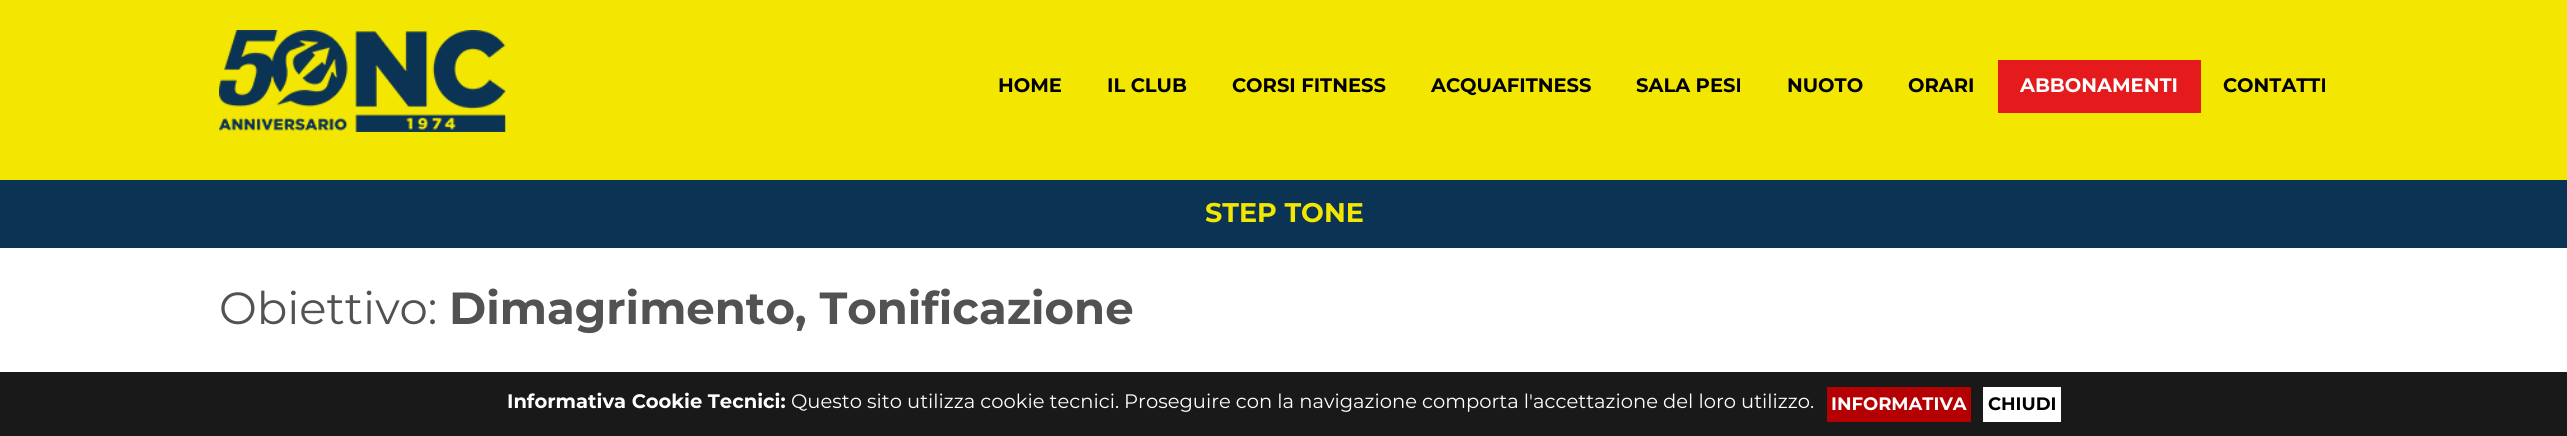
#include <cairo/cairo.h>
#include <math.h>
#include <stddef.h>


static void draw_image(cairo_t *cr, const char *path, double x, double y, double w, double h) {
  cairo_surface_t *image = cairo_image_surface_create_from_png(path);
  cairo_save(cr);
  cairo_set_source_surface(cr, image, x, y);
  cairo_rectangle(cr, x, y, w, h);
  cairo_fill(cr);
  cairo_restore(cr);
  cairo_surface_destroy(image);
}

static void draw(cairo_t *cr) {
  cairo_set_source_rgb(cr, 1, 1, 1);
  cairo_paint(cr);
  cairo_set_source_rgb(cr, 243 / 255.0, 230 / 255.0, 1 / 255.0);
  cairo_rectangle(cr, 0, 0, 2567, 180);
  cairo_fill(cr);
  draw_image(cr, "images/1.png", 219, 30, 287, 102);
  cairo_set_source_rgb(cr, 229 / 255.0, 26 / 255.0, 29 / 255.0);
  cairo_rectangle(cr, 1998, 60, 203, 53);
  cairo_fill(cr);
  cairo_set_source_rgb(cr, 11 / 255.0, 51 / 255.0, 84 / 255.0);
  cairo_rectangle(cr, 0, 180, 2567, 68);
  cairo_fill(cr);
  cairo_set_source_rgba(cr, 0, 0, 0, 0.9);
  cairo_rectangle(cr, 0, 372, 2567, 64);
  cairo_fill(cr);
  cairo_set_source_rgb(cr, 181 / 255.0, 0, 3 / 255.0);
  cairo_rectangle(cr, 1827, 387, 144, 35);
  cairo_fill(cr);
  cairo_set_source_rgb(cr, 1, 1, 1);
  cairo_rectangle(cr, 1983, 387, 78, 35);
  cairo_fill(cr);
  cairo_select_font_face(cr, "Montserrat", CAIRO_FONT_SLANT_NORMAL, CAIRO_FONT_WEIGHT_BOLD);
  cairo_set_font_size(cr, 19.5);
  cairo_set_source_rgb(cr, 0, 0, 0);
  cairo_move_to(cr, 998, 92);
  cairo_show_text(cr, "HOME");
  cairo_move_to(cr, 1107, 92);
  cairo_show_text(cr, "IL CLUB");
  cairo_move_to(cr, 1232, 92);
  cairo_show_text(cr, "CORSI FITNESS");
  cairo_move_to(cr, 1431, 92);
  cairo_show_text(cr, "ACQUAFITNESS");
  cairo_move_to(cr, 1636, 92);
  cairo_show_text(cr, "SALA PESI");
  cairo_move_to(cr, 1787, 92);
  cairo_show_text(cr, "NUOTO");
  cairo_move_to(cr, 1908, 92);
  cairo_show_text(cr, "ORARI");
  cairo_set_source_rgb(cr, 1, 1, 1);
  cairo_move_to(cr, 2020, 92);
  cairo_show_text(cr, "ABBONAMENTI");
  cairo_set_source_rgb(cr, 0, 0, 0);
  cairo_move_to(cr, 2223, 92);
  cairo_show_text(cr, "CONTATTI");
  cairo_set_font_size(cr, 27);
  cairo_set_source_rgb(cr, 243 / 255.0, 230 / 255.0, 1 / 255.0);
  cairo_move_to(cr, 1205, 222);
  cairo_show_text(cr, "STEP TONE");
  cairo_select_font_face(cr, "Montserrat", CAIRO_FONT_SLANT_NORMAL, CAIRO_FONT_WEIGHT_NORMAL);
  cairo_set_font_size(cr, 45);
  cairo_set_source_rgb(cr, 82 / 255.0, 82 / 255.0, 82 / 255.0);
  cairo_move_to(cr, 219, 324);
  cairo_show_text(cr, "Obiettivo:");
  cairo_select_font_face(cr, "Montserrat", CAIRO_FONT_SLANT_NORMAL, CAIRO_FONT_WEIGHT_BOLD);
  cairo_move_to(cr, 449, 324);
  cairo_show_text(cr, "Dimagrimento, Tonificazione");
  cairo_set_font_size(cr, 19.5);
  cairo_set_source_rgb(cr, 1, 1, 1);
  cairo_move_to(cr, 507, 408);
  cairo_show_text(cr, "Informativa Cookie Tecnici:");
  cairo_select_font_face(cr, "Montserrat", CAIRO_FONT_SLANT_NORMAL, CAIRO_FONT_WEIGHT_NORMAL);
  cairo_move_to(cr, 791, 408);
  cairo_show_text(cr, "Questo sito utilizza cookie tecnici. Proseguire con la navigazione comporta l'accettazione del loro utilizzo.");
  cairo_select_font_face(cr, "Montserrat", CAIRO_FONT_SLANT_NORMAL, CAIRO_FONT_WEIGHT_BOLD);
  cairo_set_font_size(cr, 18);
  cairo_move_to(cr, 1831, 410);
  cairo_show_text(cr, "INFORMATIVA");
  cairo_set_source_rgb(cr, 0, 0, 0);
  cairo_move_to(cr, 1988, 410);
  cairo_show_text(cr, "CHIUDI");
}

int main(void) {
  cairo_surface_t *surface = cairo_image_surface_create(CAIRO_FORMAT_RGB24, 2567, 436);
  cairo_t *cr = cairo_create(surface);
  cairo_font_options_t *options = cairo_font_options_create();
  cairo_font_options_set_hint_metrics(options, CAIRO_HINT_METRICS_OFF);
  cairo_font_options_set_hint_style(options, CAIRO_HINT_STYLE_NONE);
  cairo_set_font_options(cr, options);
  cairo_set_miter_limit(cr, 4);
  draw(cr);
  cairo_surface_write_to_png(surface, "out.png");
  cairo_font_options_destroy(options);
  cairo_destroy(cr);
  cairo_surface_destroy(surface);
  return 0;
}
